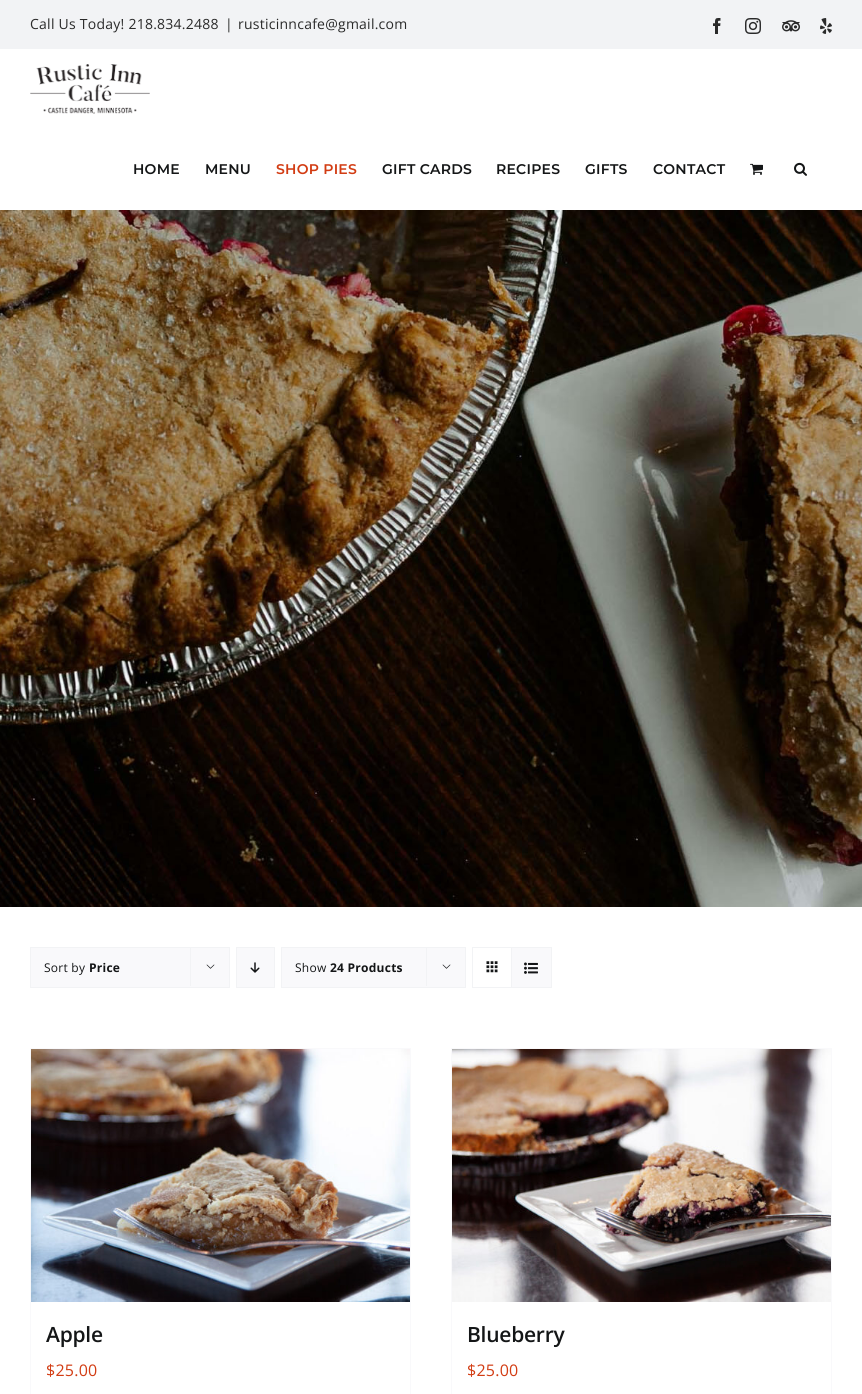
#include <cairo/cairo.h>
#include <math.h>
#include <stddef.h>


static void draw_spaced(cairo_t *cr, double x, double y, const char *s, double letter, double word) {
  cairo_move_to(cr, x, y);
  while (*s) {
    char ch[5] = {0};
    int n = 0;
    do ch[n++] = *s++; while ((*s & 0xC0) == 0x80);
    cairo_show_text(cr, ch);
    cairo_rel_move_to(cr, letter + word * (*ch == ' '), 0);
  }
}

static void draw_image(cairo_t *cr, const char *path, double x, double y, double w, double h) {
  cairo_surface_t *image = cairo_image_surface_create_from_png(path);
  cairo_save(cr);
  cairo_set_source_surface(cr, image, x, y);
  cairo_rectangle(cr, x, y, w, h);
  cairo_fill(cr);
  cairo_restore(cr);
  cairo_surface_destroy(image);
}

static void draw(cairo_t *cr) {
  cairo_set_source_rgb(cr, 1, 1, 1);
  cairo_paint(cr);
  cairo_set_source_rgb(cr, 242 / 255.0, 243 / 255.0, 245 / 255.0);
  cairo_rectangle(cr, 0, 0, 862, 49);
  cairo_fill(cr);
  draw_image(cr, "images/1.png", 713, 18, 8, 16);
  draw_image(cr, "images/2.png", 745, 18, 16, 16);
  draw_image(cr, "images/3.png", 782, 20, 18, 12);
  draw_image(cr, "images/4.png", 820, 18, 12, 16);
  draw_image(cr, "images/5.png", 30, 64, 120, 50);
  draw_image(cr, "images/6.png", 750, 163, 13, 12);
  draw_image(cr, "images/7.png", 794, 162, 13, 14);
  draw_image(cr, "images/8.png", 0, 210, 862, 697);
  cairo_set_source_rgb(cr, 249 / 255.0, 249 / 255.0, 251 / 255.0);
  cairo_rectangle(cr, 30.5, 947.5, 199, 40);
  cairo_fill_preserve(cr);
  cairo_set_source_rgb(cr, 242 / 255.0, 243 / 255.0, 245 / 255.0);
  cairo_set_line_width(cr, 1);
  cairo_stroke(cr);
  cairo_rectangle(cr, 190, 947, 1, 39);
  cairo_fill(cr);
  draw_image(cr, "images/9.png", 206, 964, 9, 5);
  cairo_set_source_rgb(cr, 249 / 255.0, 249 / 255.0, 251 / 255.0);
  cairo_rectangle(cr, 236.5, 947.5, 38, 40);
  cairo_fill_preserve(cr);
  cairo_set_source_rgb(cr, 242 / 255.0, 243 / 255.0, 245 / 255.0);
  cairo_stroke(cr);
  draw_image(cr, "images/10.png", 250, 962, 10, 11);
  cairo_set_source_rgb(cr, 249 / 255.0, 249 / 255.0, 251 / 255.0);
  cairo_rectangle(cr, 281.5, 947.5, 184, 40);
  cairo_fill_preserve(cr);
  cairo_set_source_rgb(cr, 242 / 255.0, 243 / 255.0, 245 / 255.0);
  cairo_stroke(cr);
  cairo_rectangle(cr, 426, 947, 1, 39);
  cairo_fill(cr);
  draw_image(cr, "images/9.png", 442, 964, 9, 5);
  cairo_rectangle(cr, 472.5, 947.5, 79, 40);
  cairo_stroke(cr);
  cairo_rectangle(cr, 511, 948, 1, 39);
  cairo_fill(cr);
  draw_image(cr, "images/11.png", 486, 961, 12, 12);
  cairo_set_source_rgb(cr, 249 / 255.0, 249 / 255.0, 251 / 255.0);
  cairo_rectangle(cr, 512, 948, 39, 39);
  cairo_fill(cr);
  draw_image(cr, "images/12.png", 524, 962, 14, 12);
  cairo_rectangle(cr, 30, 1048, 381, 1);
  cairo_fill(cr);
  cairo_rectangle(cr, 410, 1048, 1, 346);
  cairo_fill(cr);
  cairo_rectangle(cr, 30, 1048, 1, 346);
  cairo_fill(cr);
  draw_image(cr, "images/13.png", 31, 1049, 379, 253);
  cairo_rectangle(cr, 451, 1048, 381, 1);
  cairo_fill(cr);
  cairo_rectangle(cr, 831, 1048, 1, 346);
  cairo_fill(cr);
  cairo_rectangle(cr, 451, 1048, 1, 346);
  cairo_fill(cr);
  draw_image(cr, "images/14.png", 452, 1049, 379, 253);
  cairo_select_font_face(cr, "Open Sans", CAIRO_FONT_SLANT_NORMAL, CAIRO_FONT_WEIGHT_NORMAL);
  cairo_set_font_size(cr, 14);
  cairo_set_source_rgb(cr, 42 / 255.0, 42 / 255.0, 42 / 255.0);
  draw_spaced(cr, 30, 29, "Call Us Today! 218.834.2488", 0.25, 0);
  draw_spaced(cr, 225, 29, "|", 0.25, 0);
  draw_spaced(cr, 238, 29, "rusticinncafe@gmail.com", 0.25, 0);
  cairo_select_font_face(cr, "Montserrat SemiBold", CAIRO_FONT_SLANT_NORMAL, CAIRO_FONT_WEIGHT_NORMAL);
  cairo_set_source_rgb(cr, 20 / 255.0, 22 / 255.0, 23 / 255.0);
  draw_spaced(cr, 133, 174, "HOME", 0.25, 0);
  draw_spaced(cr, 205, 174, "MENU", 0.25, 0);
  cairo_set_source_rgb(cr, 210 / 255.0, 60 / 255.0, 19 / 255.0);
  draw_spaced(cr, 276, 174, "SHOP PIES", 0.25, 0);
  cairo_set_source_rgb(cr, 20 / 255.0, 22 / 255.0, 23 / 255.0);
  draw_spaced(cr, 382, 174, "GIFT CARDS", 0.25, 0);
  draw_spaced(cr, 496, 174, "RECIPES", 0.25, 0);
  draw_spaced(cr, 585, 174, "GIFTS", 0.25, 0);
  draw_spaced(cr, 653, 174, "CONTACT", 0.25, 0);
  cairo_select_font_face(cr, "Open Sans", CAIRO_FONT_SLANT_NORMAL, CAIRO_FONT_WEIGHT_NORMAL);
  cairo_set_font_size(cr, 12);
  draw_spaced(cr, 44, 972, "Sort by", 0.25, 0);
  cairo_select_font_face(cr, "Open Sans", CAIRO_FONT_SLANT_NORMAL, CAIRO_FONT_WEIGHT_BOLD);
  draw_spaced(cr, 89, 972, "Price", 0.25, 0);
  cairo_select_font_face(cr, "Open Sans", CAIRO_FONT_SLANT_NORMAL, CAIRO_FONT_WEIGHT_NORMAL);
  draw_spaced(cr, 295, 972, "Show", 0.25, 0);
  cairo_select_font_face(cr, "Open Sans", CAIRO_FONT_SLANT_NORMAL, CAIRO_FONT_WEIGHT_BOLD);
  draw_spaced(cr, 330, 972, "24 Products", 0.25, 0);
  cairo_select_font_face(cr, "Open Sans SemiBold", CAIRO_FONT_SLANT_NORMAL, CAIRO_FONT_WEIGHT_NORMAL);
  cairo_set_font_size(cr, 21);
  draw_spaced(cr, 46, 1342, "Apple", -0.25, 0);
  cairo_select_font_face(cr, "Open Sans", CAIRO_FONT_SLANT_NORMAL, CAIRO_FONT_WEIGHT_NORMAL);
  cairo_set_font_size(cr, 16);
  cairo_set_source_rgb(cr, 210 / 255.0, 60 / 255.0, 19 / 255.0);
  draw_spaced(cr, 46, 1376, "$25.00", 0.25, 0);
  cairo_select_font_face(cr, "Open Sans SemiBold", CAIRO_FONT_SLANT_NORMAL, CAIRO_FONT_WEIGHT_NORMAL);
  cairo_set_font_size(cr, 21);
  cairo_set_source_rgb(cr, 20 / 255.0, 22 / 255.0, 23 / 255.0);
  draw_spaced(cr, 467, 1342, "Blueberry", -0.25, 0);
  cairo_select_font_face(cr, "Open Sans", CAIRO_FONT_SLANT_NORMAL, CAIRO_FONT_WEIGHT_NORMAL);
  cairo_set_font_size(cr, 16);
  cairo_set_source_rgb(cr, 210 / 255.0, 60 / 255.0, 19 / 255.0);
  draw_spaced(cr, 467, 1376, "$25.00", 0.25, 0);
}

int main(void) {
  cairo_surface_t *surface = cairo_image_surface_create(CAIRO_FORMAT_RGB24, 862, 1394);
  cairo_t *cr = cairo_create(surface);
  cairo_font_options_t *options = cairo_font_options_create();
  cairo_font_options_set_hint_metrics(options, CAIRO_HINT_METRICS_OFF);
  cairo_font_options_set_hint_style(options, CAIRO_HINT_STYLE_NONE);
  cairo_set_font_options(cr, options);
  cairo_set_miter_limit(cr, 4);
  draw(cr);
  cairo_surface_write_to_png(surface, "out.png");
  cairo_font_options_destroy(options);
  cairo_destroy(cr);
  cairo_surface_destroy(surface);
  return 0;
}
